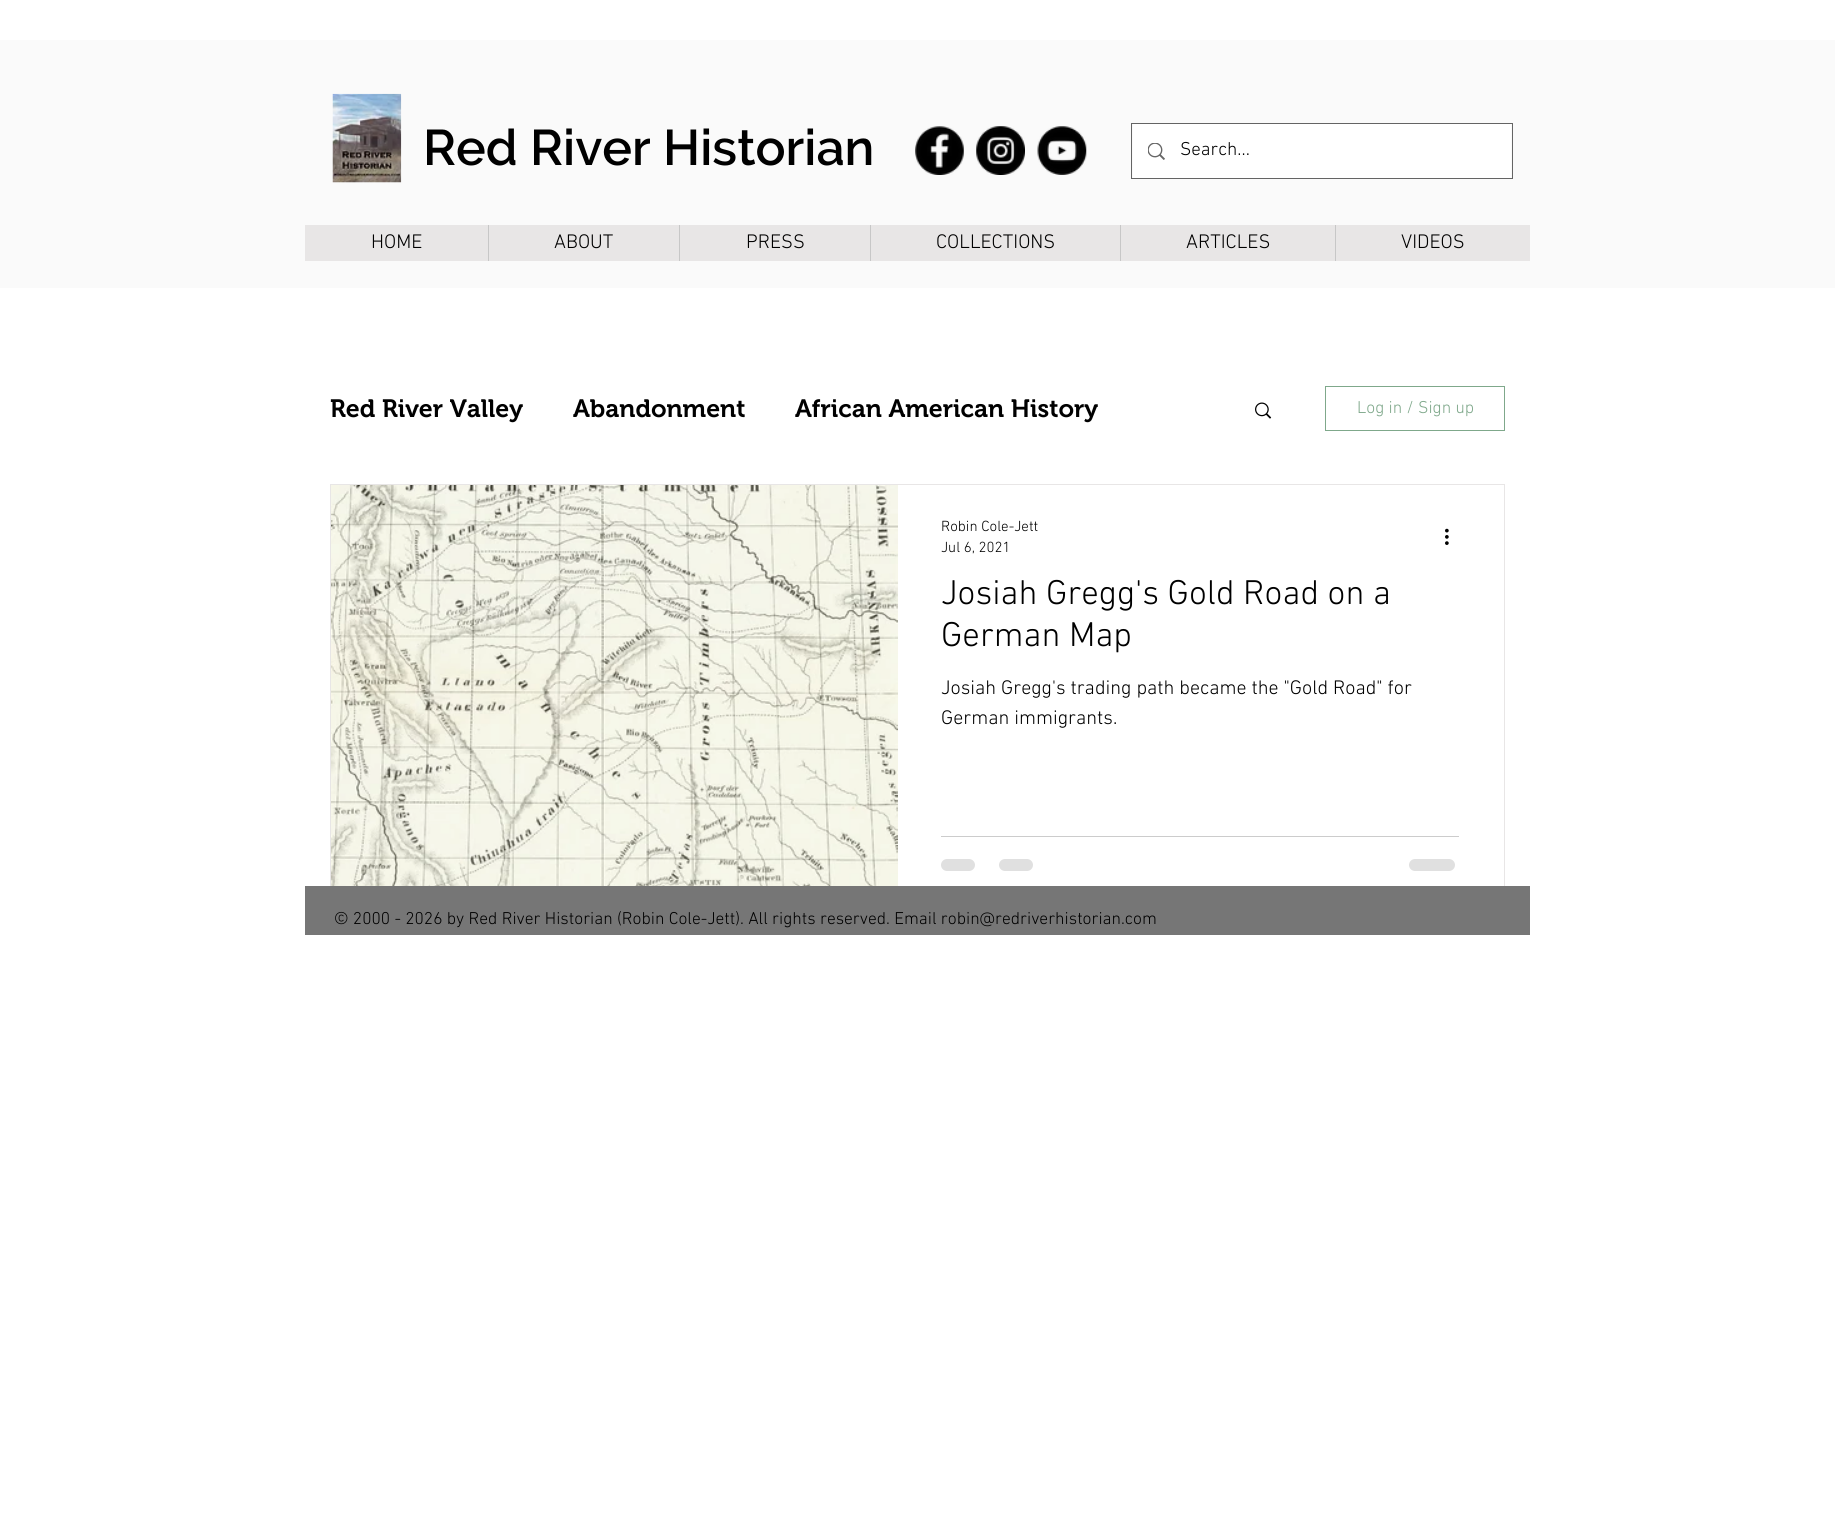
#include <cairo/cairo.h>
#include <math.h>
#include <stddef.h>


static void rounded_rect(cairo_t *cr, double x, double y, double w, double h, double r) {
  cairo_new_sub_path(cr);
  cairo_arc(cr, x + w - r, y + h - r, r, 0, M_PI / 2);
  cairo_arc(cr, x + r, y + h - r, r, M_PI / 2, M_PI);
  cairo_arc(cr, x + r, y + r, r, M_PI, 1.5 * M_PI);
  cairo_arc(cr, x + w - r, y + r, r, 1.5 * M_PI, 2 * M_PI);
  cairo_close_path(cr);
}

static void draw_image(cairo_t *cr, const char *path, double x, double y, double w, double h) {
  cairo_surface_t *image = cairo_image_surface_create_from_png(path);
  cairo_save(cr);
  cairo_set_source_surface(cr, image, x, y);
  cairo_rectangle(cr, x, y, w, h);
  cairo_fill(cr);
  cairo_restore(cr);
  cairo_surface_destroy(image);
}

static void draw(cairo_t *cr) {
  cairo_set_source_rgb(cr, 1, 1, 1);
  cairo_paint(cr);
  cairo_set_source_rgb(cr, 250 / 255.0, 250 / 255.0, 250 / 255.0);
  cairo_rectangle(cr, 0, 40, 1835, 248);
  cairo_fill(cr);
  draw_image(cr, "images/1.png", 332, 93, 70, 90);
  draw_image(cr, "images/2.png", 915, 126, 49, 49);
  draw_image(cr, "images/3.png", 976, 126, 49, 49);
  draw_image(cr, "images/4.png", 1037, 126, 50, 49);
  cairo_rectangle(cr, 1131.5, 123.5, 381, 55);
  cairo_set_source_rgb(cr, 100 / 255.0, 100 / 255.0, 100 / 255.0);
  cairo_set_line_width(cr, 1);
  cairo_stroke(cr);
  cairo_set_source_rgb(cr, 1, 1, 1);
  cairo_rectangle(cr, 1133, 124, 378, 54);
  cairo_fill(cr);
  draw_image(cr, "images/5.png", 1148, 143, 17, 17);
  cairo_set_source_rgb(cr, 232 / 255.0, 230 / 255.0, 230 / 255.0);
  cairo_rectangle(cr, 305, 225, 1225, 36);
  cairo_fill(cr);
  cairo_set_source_rgb(cr, 199 / 255.0, 199 / 255.0, 199 / 255.0);
  cairo_rectangle(cr, 488, 225, 1, 36);
  cairo_fill(cr);
  cairo_rectangle(cr, 679, 225, 1, 36);
  cairo_fill(cr);
  cairo_rectangle(cr, 870, 225, 1, 36);
  cairo_fill(cr);
  cairo_rectangle(cr, 1120, 225, 1, 36);
  cairo_fill(cr);
  cairo_rectangle(cr, 1335, 225, 1, 36);
  cairo_fill(cr);
  draw_image(cr, "images/6.png", 1255, 402, 17, 17);
  cairo_rectangle(cr, 1325.5, 386.5, 179, 44);
  cairo_set_source_rgb(cr, 127 / 255.0, 168 / 255.0, 139 / 255.0);
  cairo_stroke(cr);
  cairo_rectangle(cr, 330.5, 484.5, 1174, 425);
  cairo_set_source_rgb(cr, 232 / 255.0, 230 / 255.0, 230 / 255.0);
  cairo_stroke(cr);
  draw_image(cr, "images/7.png", 331, 485, 567, 401);
  draw_image(cr, "images/8.png", 1445, 528, 4, 17);
  cairo_set_source_rgb(cr, 204 / 255.0, 204 / 255.0, 204 / 255.0);
  cairo_rectangle(cr, 941, 836, 518, 1);
  cairo_fill(cr);
  cairo_set_source_rgb(cr, 224 / 255.0, 224 / 255.0, 224 / 255.0);
  rounded_rect(cr, 941, 859, 34, 12, 6);
  cairo_fill(cr);
  rounded_rect(cr, 999, 859, 34, 12, 6);
  cairo_fill(cr);
  rounded_rect(cr, 1409, 859, 46, 12, 6);
  cairo_fill(cr);
  cairo_set_source_rgb(cr, 118 / 255.0, 118 / 255.0, 118 / 255.0);
  cairo_rectangle(cr, 305, 886, 1225, 49);
  cairo_fill(cr);
  cairo_select_font_face(cr, "Raleway SemiBold", CAIRO_FONT_SLANT_NORMAL, CAIRO_FONT_WEIGHT_NORMAL);
  cairo_set_font_size(cr, 50);
  cairo_set_source_rgb(cr, 0, 0, 0);
  cairo_move_to(cr, 423, 165);
  cairo_show_text(cr, "Red River Historian");
  cairo_select_font_face(cr, "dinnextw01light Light", CAIRO_FONT_SLANT_NORMAL, CAIRO_FONT_WEIGHT_NORMAL);
  cairo_set_font_size(cr, 19);
  cairo_move_to(cr, 1180, 155);
  cairo_show_text(cr, "Search...");
  cairo_set_font_size(cr, 20);
  cairo_move_to(cr, 371, 248);
  cairo_show_text(cr, "HOME");
  cairo_move_to(cr, 554, 248);
  cairo_show_text(cr, "ABOUT");
  cairo_move_to(cr, 746, 248);
  cairo_show_text(cr, "PRESS");
  cairo_move_to(cr, 936, 248);
  cairo_show_text(cr, "COLLECTIONS");
  cairo_move_to(cr, 1186, 248);
  cairo_show_text(cr, "ARTICLES");
  cairo_move_to(cr, 1401, 248);
  cairo_show_text(cr, "VIDEOS");
  cairo_select_font_face(cr, "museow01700 SemiBold", CAIRO_FONT_SLANT_NORMAL, CAIRO_FONT_WEIGHT_NORMAL);
  cairo_set_font_size(cr, 25);
  cairo_move_to(cr, 330, 417);
  cairo_show_text(cr, "Red River Valley");
  cairo_move_to(cr, 573, 417);
  cairo_show_text(cr, "Abandonment");
  cairo_move_to(cr, 795, 417);
  cairo_show_text(cr, "African American History");
  cairo_select_font_face(cr, "dinnextw01light Light", CAIRO_FONT_SLANT_NORMAL, CAIRO_FONT_WEIGHT_NORMAL);
  cairo_set_font_size(cr, 17.5);
  cairo_set_source_rgb(cr, 127 / 255.0, 168 / 255.0, 139 / 255.0);
  cairo_move_to(cr, 1357, 413);
  cairo_show_text(cr, "Log in / Sign up");
  cairo_set_font_size(cr, 15);
  cairo_set_source_rgb(cr, 0, 0, 0);
  cairo_move_to(cr, 941, 531);
  cairo_show_text(cr, "Robin Cole-Jett");
  cairo_move_to(cr, 941, 552);
  cairo_show_text(cr, "Jul 6, 2021");
  cairo_set_font_size(cr, 35);
  cairo_move_to(cr, 941, 604);
  cairo_show_text(cr, "Josiah Gregg's Gold Road on a");
  cairo_move_to(cr, 941, 646);
  cairo_show_text(cr, "German Map");
  cairo_set_font_size(cr, 20);
  cairo_move_to(cr, 941, 694);
  cairo_show_text(cr, "Josiah Gregg's trading path became the \"Gold Road\" for");
  cairo_move_to(cr, 941, 724);
  cairo_show_text(cr, "German immigrants.");
  cairo_set_font_size(cr, 17.5);
  cairo_move_to(cr, 334, 924);
  cairo_show_text(cr, "© 2000 - 2026 by Red River Historian (Robin Cole-Jett). All rights reserved. Email robin@redriverhistorian.com");
}

int main(void) {
  cairo_surface_t *surface = cairo_image_surface_create(CAIRO_FORMAT_RGB24, 1835, 1515);
  cairo_t *cr = cairo_create(surface);
  cairo_font_options_t *options = cairo_font_options_create();
  cairo_font_options_set_hint_metrics(options, CAIRO_HINT_METRICS_OFF);
  cairo_font_options_set_hint_style(options, CAIRO_HINT_STYLE_NONE);
  cairo_set_font_options(cr, options);
  cairo_set_miter_limit(cr, 4);
  draw(cr);
  cairo_surface_write_to_png(surface, "out.png");
  cairo_font_options_destroy(options);
  cairo_destroy(cr);
  cairo_surface_destroy(surface);
  return 0;
}
